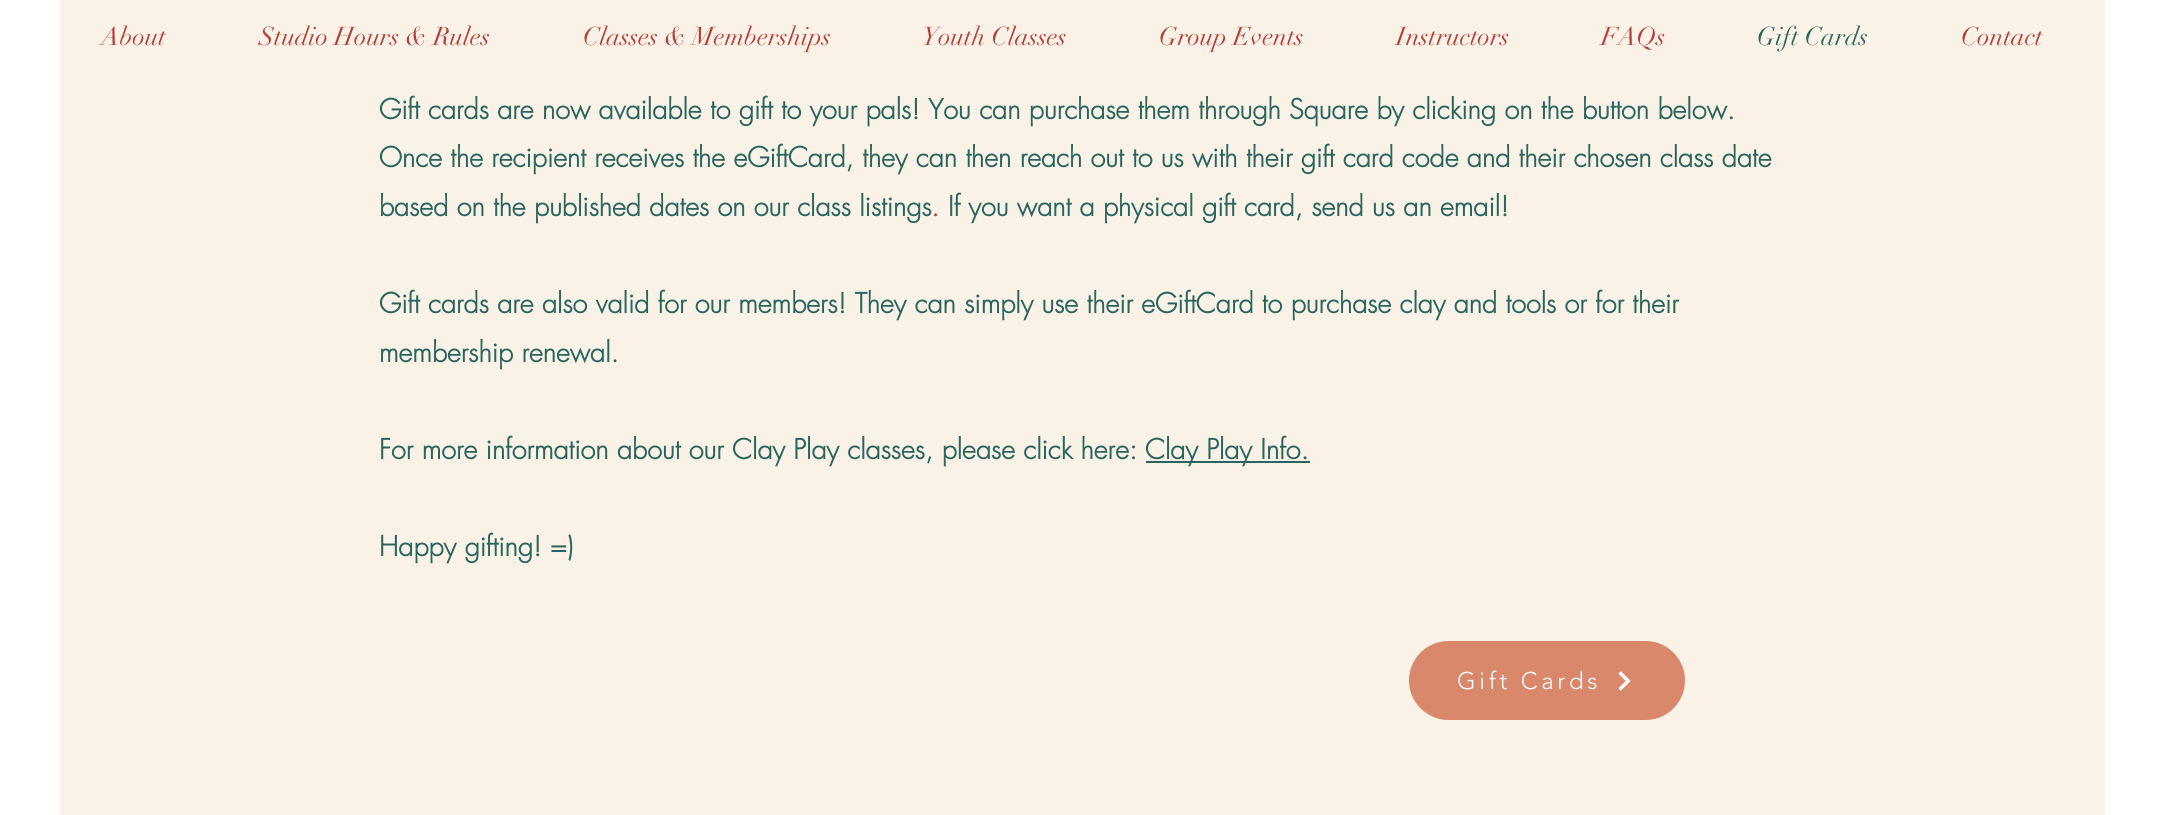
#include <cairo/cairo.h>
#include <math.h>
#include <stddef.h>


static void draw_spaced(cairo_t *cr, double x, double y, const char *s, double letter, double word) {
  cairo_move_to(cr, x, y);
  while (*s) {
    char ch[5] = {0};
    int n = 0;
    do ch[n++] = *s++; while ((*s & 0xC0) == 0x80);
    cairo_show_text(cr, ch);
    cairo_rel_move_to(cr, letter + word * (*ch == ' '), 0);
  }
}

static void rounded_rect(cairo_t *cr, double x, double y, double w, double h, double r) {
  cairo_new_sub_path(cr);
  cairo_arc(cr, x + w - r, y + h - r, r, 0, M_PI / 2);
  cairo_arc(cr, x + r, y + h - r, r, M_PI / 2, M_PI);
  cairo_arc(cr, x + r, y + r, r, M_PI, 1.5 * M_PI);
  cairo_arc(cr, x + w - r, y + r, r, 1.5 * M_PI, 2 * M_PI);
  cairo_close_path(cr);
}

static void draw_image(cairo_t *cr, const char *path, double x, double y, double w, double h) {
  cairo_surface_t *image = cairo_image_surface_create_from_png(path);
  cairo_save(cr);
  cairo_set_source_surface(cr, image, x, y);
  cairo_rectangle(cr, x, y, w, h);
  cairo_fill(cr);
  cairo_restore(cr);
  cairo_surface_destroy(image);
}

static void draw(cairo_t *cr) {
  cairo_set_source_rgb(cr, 1, 1, 1);
  cairo_paint(cr);
  cairo_set_source_rgb(cr, 251 / 255.0, 242 / 255.0, 231 / 255.0);
  cairo_rectangle(cr, 60, 0, 2045, 815);
  cairo_fill(cr);
  cairo_set_source_rgb(cr, 40 / 255.0, 101 / 255.0, 94 / 255.0);
  cairo_rectangle(cr, 1146, 461, 164, 2);
  cairo_fill(cr);
  cairo_set_source_rgb(cr, 217 / 255.0, 136 / 255.0, 108 / 255.0);
  rounded_rect(cr, 1409, 641, 276, 79, 39.5);
  cairo_fill(cr);
  draw_image(cr, "images/1.png", 1618, 671, 13, 20);
  cairo_select_font_face(cr, "didot", CAIRO_FONT_SLANT_NORMAL, CAIRO_FONT_WEIGHT_NORMAL);
  cairo_set_font_size(cr, 25.5);
  cairo_set_source_rgb(cr, 181 / 255.0, 63 / 255.0, 55 / 255.0);
  cairo_move_to(cr, 101, 45);
  cairo_show_text(cr, "About");
  cairo_move_to(cr, 259, 45);
  cairo_show_text(cr, "Studio Hours & Rules");
  cairo_move_to(cr, 583, 45);
  cairo_show_text(cr, "Classes & Memberships");
  cairo_move_to(cr, 922, 45);
  cairo_show_text(cr, "Youth Classes");
  cairo_move_to(cr, 1159, 45);
  cairo_show_text(cr, "Group Events");
  cairo_move_to(cr, 1396, 45);
  cairo_show_text(cr, "Instructors");
  cairo_move_to(cr, 1601, 45);
  cairo_show_text(cr, "FAQs");
  cairo_set_source_rgb(cr, 40 / 255.0, 101 / 255.0, 94 / 255.0);
  cairo_move_to(cr, 1757, 45);
  cairo_show_text(cr, "Gift Cards");
  cairo_set_source_rgb(cr, 181 / 255.0, 63 / 255.0, 55 / 255.0);
  cairo_move_to(cr, 1961, 45);
  cairo_show_text(cr, "Contact");
  cairo_select_font_face(cr, "futura", CAIRO_FONT_SLANT_NORMAL, CAIRO_FONT_WEIGHT_BOLD);
  cairo_set_font_size(cr, 27);
  cairo_set_source_rgb(cr, 40 / 255.0, 101 / 255.0, 94 / 255.0);
  cairo_move_to(cr, 379, 119);
  cairo_show_text(cr, "Gift cards are now available to gift to your pals! You can purchase them through Square by clicking on the button below.");
  cairo_move_to(cr, 379, 167);
  cairo_show_text(cr, "Once the recipient receives the eGiftCard, they can then reach out to us with their gift card code and their chosen class date");
  cairo_move_to(cr, 379, 216);
  cairo_show_text(cr, "based on the published dates on our class listings");
  cairo_set_source_rgb(cr, 181 / 255.0, 63 / 255.0, 55 / 255.0);
  cairo_move_to(cr, 931, 216);
  cairo_show_text(cr, ".");
  cairo_set_source_rgb(cr, 40 / 255.0, 101 / 255.0, 94 / 255.0);
  cairo_move_to(cr, 948, 216);
  cairo_show_text(cr, "If you want a physical gift card, send us an email!");
  cairo_move_to(cr, 379, 313);
  cairo_show_text(cr, "Gift cards are also valid for our members! They can simply use their eGiftCard to purchase clay and tools or for their");
  cairo_move_to(cr, 379, 362);
  cairo_show_text(cr, "membership renewal.");
  cairo_move_to(cr, 379, 459);
  cairo_show_text(cr, "For more information about our Clay Play classes, please click here:");
  cairo_move_to(cr, 1145, 459);
  cairo_show_text(cr, "Clay Play Info.");
  cairo_move_to(cr, 379, 556);
  cairo_show_text(cr, "Happy gifting! =)");
  cairo_select_font_face(cr, "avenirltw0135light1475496 Light", CAIRO_FONT_SLANT_NORMAL, CAIRO_FONT_WEIGHT_NORMAL);
  cairo_set_font_size(cr, 24);
  cairo_set_source_rgb(cr, 1, 1, 1);
  draw_spaced(cr, 1457, 689, "Gift Cards", 3.6, 0);
}

int main(void) {
  cairo_surface_t *surface = cairo_image_surface_create(CAIRO_FORMAT_RGB24, 2164, 815);
  cairo_t *cr = cairo_create(surface);
  cairo_font_options_t *options = cairo_font_options_create();
  cairo_font_options_set_hint_metrics(options, CAIRO_HINT_METRICS_OFF);
  cairo_font_options_set_hint_style(options, CAIRO_HINT_STYLE_NONE);
  cairo_set_font_options(cr, options);
  cairo_set_miter_limit(cr, 4);
  draw(cr);
  cairo_surface_write_to_png(surface, "out.png");
  cairo_font_options_destroy(options);
  cairo_destroy(cr);
  cairo_surface_destroy(surface);
  return 0;
}
